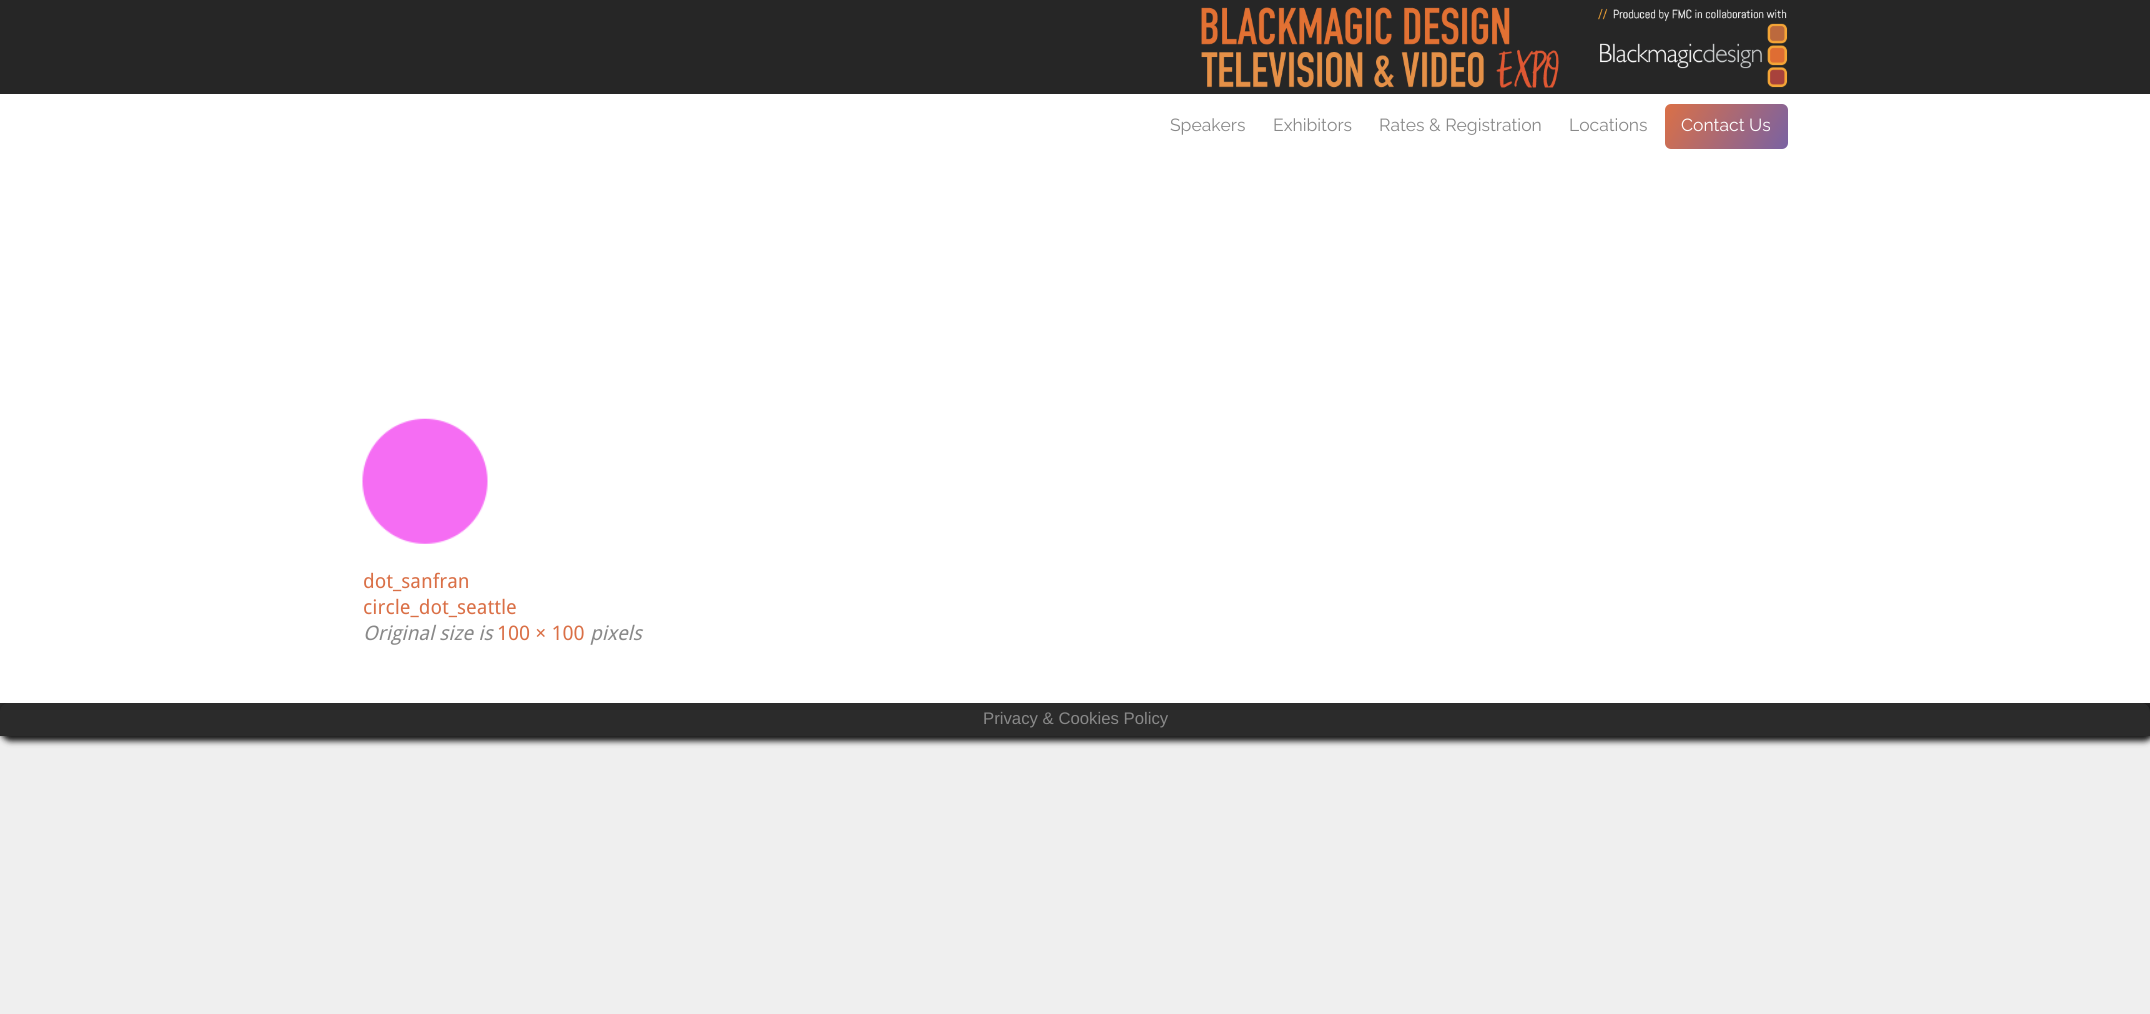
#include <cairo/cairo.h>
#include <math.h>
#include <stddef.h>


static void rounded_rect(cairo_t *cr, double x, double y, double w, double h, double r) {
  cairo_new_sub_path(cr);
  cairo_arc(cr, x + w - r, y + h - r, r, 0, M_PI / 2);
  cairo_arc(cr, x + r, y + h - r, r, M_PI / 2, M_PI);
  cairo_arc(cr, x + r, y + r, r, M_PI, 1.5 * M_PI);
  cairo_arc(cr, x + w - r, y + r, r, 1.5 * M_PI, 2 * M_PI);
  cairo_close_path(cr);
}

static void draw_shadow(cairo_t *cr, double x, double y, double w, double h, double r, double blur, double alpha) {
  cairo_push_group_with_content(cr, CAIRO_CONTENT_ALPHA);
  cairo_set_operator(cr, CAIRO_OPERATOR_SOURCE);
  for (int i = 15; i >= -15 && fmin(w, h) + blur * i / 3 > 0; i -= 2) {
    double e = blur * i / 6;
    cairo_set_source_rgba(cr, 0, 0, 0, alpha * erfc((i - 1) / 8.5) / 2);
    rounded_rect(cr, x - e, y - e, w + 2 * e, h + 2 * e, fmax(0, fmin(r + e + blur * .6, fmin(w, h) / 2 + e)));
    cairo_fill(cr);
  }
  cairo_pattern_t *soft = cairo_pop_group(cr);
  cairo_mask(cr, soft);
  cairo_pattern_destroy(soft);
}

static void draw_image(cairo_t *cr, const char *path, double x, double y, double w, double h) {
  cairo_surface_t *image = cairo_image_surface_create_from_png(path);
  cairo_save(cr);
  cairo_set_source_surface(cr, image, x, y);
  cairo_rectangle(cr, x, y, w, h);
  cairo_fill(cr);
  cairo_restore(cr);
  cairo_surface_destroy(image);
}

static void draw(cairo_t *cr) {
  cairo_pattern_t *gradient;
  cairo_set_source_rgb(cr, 239 / 255.0, 239 / 255.0, 239 / 255.0);
  cairo_paint(cr);
  cairo_set_source_rgb(cr, 43 / 255.0, 43 / 255.0, 43 / 255.0);
  cairo_rectangle(cr, 0, 703, 2150, 33);
  cairo_fill(cr);
  cairo_set_source_rgb(cr, 38 / 255.0, 38 / 255.0, 38 / 255.0);
  cairo_rectangle(cr, 0, 0, 2150, 94);
  cairo_fill(cr);
  draw_image(cr, "images/1.png", 1201, 7, 587, 81);
  cairo_save(cr);
  cairo_set_fill_rule(cr, CAIRO_FILL_RULE_EVEN_ODD);
  cairo_new_path(cr);
  cairo_move_to(cr, 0, 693);
  cairo_line_to(cr, 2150, 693);
  cairo_line_to(cr, 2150, 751);
  cairo_line_to(cr, 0, 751);
  cairo_close_path(cr);
  cairo_move_to(cr, 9, 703);
  cairo_line_to(cr, 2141, 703);
  cairo_curve_to(cr, 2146, 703, 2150, 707, 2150, 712);
  cairo_line_to(cr, 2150, 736);
  cairo_line_to(cr, 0, 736);
  cairo_line_to(cr, 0, 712);
  cairo_curve_to(cr, 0, 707, 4, 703, 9, 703);
  cairo_close_path(cr);
  cairo_clip(cr);
  cairo_set_source_rgb(cr, 22 / 255.0, 22 / 255.0, 22 / 255.0);
  draw_shadow(cr, 0, 703, 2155, 38, 11, 3, 1);
  cairo_restore(cr);
  cairo_set_source_rgb(cr, 1, 1, 1);
  cairo_rectangle(cr, 0, 94, 2150, 609);
  cairo_fill(cr);
  gradient = cairo_pattern_create_linear(1671, 94, 1782, 158);
  cairo_pattern_add_color_stop_rgba(gradient, 0, 218 / 255.0, 112 / 255.0, 71 / 255.0, 1);
  cairo_pattern_add_color_stop_rgba(gradient, 1, 122 / 255.0, 98 / 255.0, 162 / 255.0, 1);
  cairo_set_source(cr, gradient);
  cairo_pattern_destroy(gradient);
  rounded_rect(cr, 1665, 104, 123, 45, 6);
  cairo_fill(cr);
  draw_image(cr, "images/2.png", 362, 418, 126, 126);
  cairo_select_font_face(cr, "Raleway", CAIRO_FONT_SLANT_NORMAL, CAIRO_FONT_WEIGHT_NORMAL);
  cairo_set_font_size(cr, 17.5);
  cairo_set_source_rgb(cr, 137 / 255.0, 137 / 255.0, 137 / 255.0);
  cairo_move_to(cr, 1170, 131);
  cairo_show_text(cr, "Speakers");
  cairo_move_to(cr, 1273, 131);
  cairo_show_text(cr, "Exhibitors");
  cairo_move_to(cr, 1379, 131);
  cairo_show_text(cr, "Rates & Registration");
  cairo_move_to(cr, 1569, 131);
  cairo_show_text(cr, "Locations");
  cairo_set_source_rgb(cr, 1, 1, 1);
  cairo_move_to(cr, 1681, 131);
  cairo_show_text(cr, "Contact Us");
  cairo_select_font_face(cr, "Droid Sans", CAIRO_FONT_SLANT_NORMAL, CAIRO_FONT_WEIGHT_NORMAL);
  cairo_set_font_size(cr, 20);
  cairo_set_source_rgb(cr, 218 / 255.0, 112 / 255.0, 71 / 255.0);
  cairo_move_to(cr, 363, 588);
  cairo_show_text(cr, "dot_sanfran");
  cairo_move_to(cr, 363, 614);
  cairo_show_text(cr, "circle_dot_seattle");
  cairo_select_font_face(cr, "Droid Sans", CAIRO_FONT_SLANT_ITALIC, CAIRO_FONT_WEIGHT_NORMAL);
  cairo_set_source_rgb(cr, 137 / 255.0, 137 / 255.0, 137 / 255.0);
  cairo_move_to(cr, 363, 640);
  cairo_show_text(cr, "Original size is");
  cairo_select_font_face(cr, "Droid Sans", CAIRO_FONT_SLANT_NORMAL, CAIRO_FONT_WEIGHT_NORMAL);
  cairo_set_source_rgb(cr, 218 / 255.0, 112 / 255.0, 71 / 255.0);
  cairo_move_to(cr, 497, 640);
  cairo_show_text(cr, "100 × 100");
  cairo_select_font_face(cr, "Droid Sans", CAIRO_FONT_SLANT_ITALIC, CAIRO_FONT_WEIGHT_NORMAL);
  cairo_set_source_rgb(cr, 137 / 255.0, 137 / 255.0, 137 / 255.0);
  cairo_move_to(cr, 590, 640);
  cairo_show_text(cr, "pixels");
  cairo_select_font_face(cr, "Liberation Sans", CAIRO_FONT_SLANT_NORMAL, CAIRO_FONT_WEIGHT_NORMAL);
  cairo_set_font_size(cr, 16.75);
  cairo_move_to(cr, 983, 724);
  cairo_show_text(cr, "Privacy & Cookies Policy");
}

int main(void) {
  cairo_surface_t *surface = cairo_image_surface_create(CAIRO_FORMAT_RGB24, 2150, 1014);
  cairo_t *cr = cairo_create(surface);
  cairo_font_options_t *options = cairo_font_options_create();
  cairo_font_options_set_hint_metrics(options, CAIRO_HINT_METRICS_OFF);
  cairo_font_options_set_hint_style(options, CAIRO_HINT_STYLE_NONE);
  cairo_set_font_options(cr, options);
  cairo_set_miter_limit(cr, 4);
  draw(cr);
  cairo_surface_write_to_png(surface, "out.png");
  cairo_font_options_destroy(options);
  cairo_destroy(cr);
  cairo_surface_destroy(surface);
  return 0;
}
